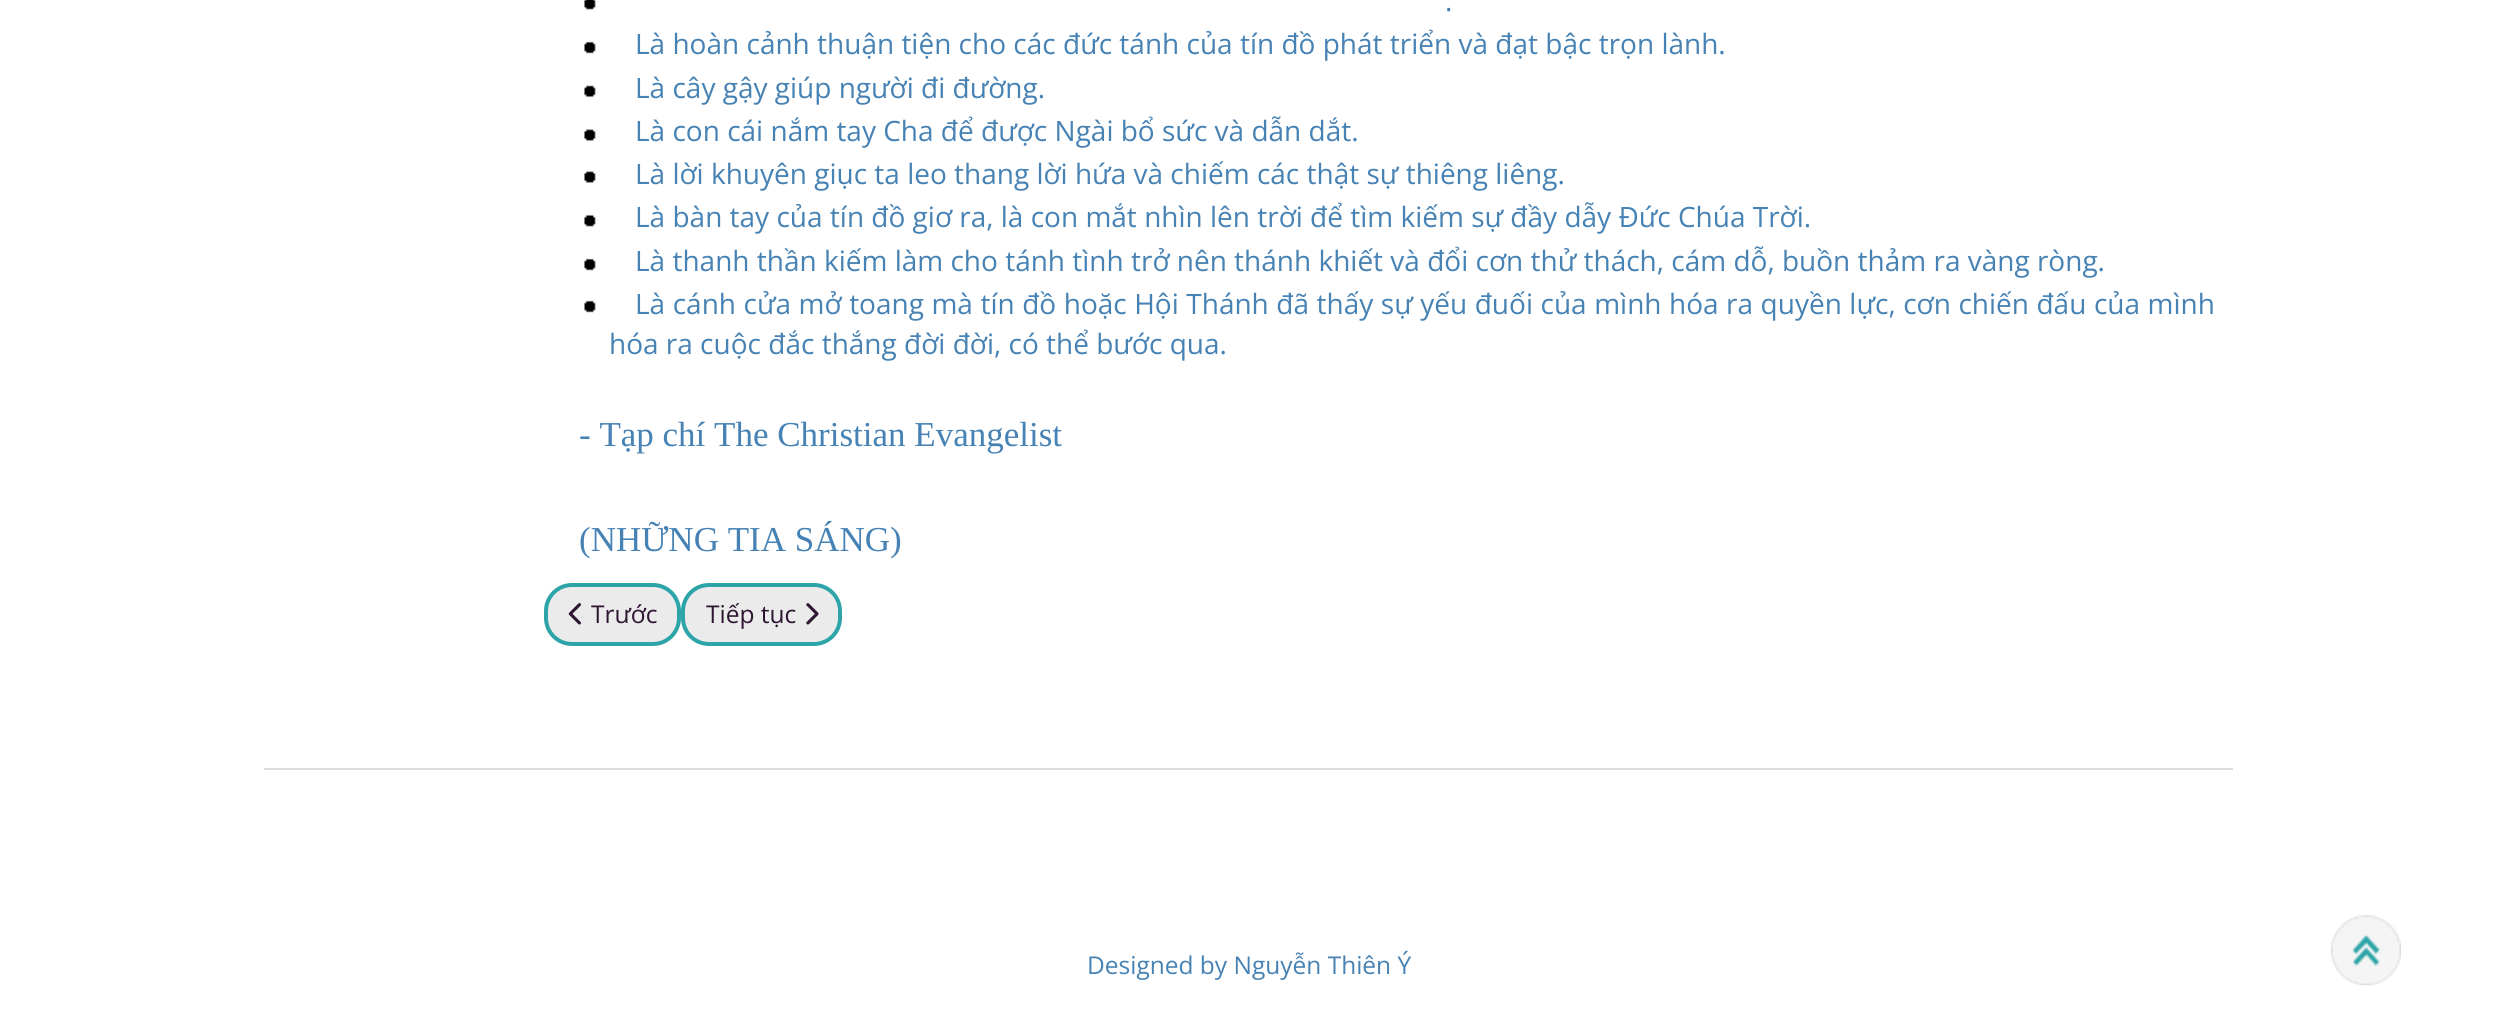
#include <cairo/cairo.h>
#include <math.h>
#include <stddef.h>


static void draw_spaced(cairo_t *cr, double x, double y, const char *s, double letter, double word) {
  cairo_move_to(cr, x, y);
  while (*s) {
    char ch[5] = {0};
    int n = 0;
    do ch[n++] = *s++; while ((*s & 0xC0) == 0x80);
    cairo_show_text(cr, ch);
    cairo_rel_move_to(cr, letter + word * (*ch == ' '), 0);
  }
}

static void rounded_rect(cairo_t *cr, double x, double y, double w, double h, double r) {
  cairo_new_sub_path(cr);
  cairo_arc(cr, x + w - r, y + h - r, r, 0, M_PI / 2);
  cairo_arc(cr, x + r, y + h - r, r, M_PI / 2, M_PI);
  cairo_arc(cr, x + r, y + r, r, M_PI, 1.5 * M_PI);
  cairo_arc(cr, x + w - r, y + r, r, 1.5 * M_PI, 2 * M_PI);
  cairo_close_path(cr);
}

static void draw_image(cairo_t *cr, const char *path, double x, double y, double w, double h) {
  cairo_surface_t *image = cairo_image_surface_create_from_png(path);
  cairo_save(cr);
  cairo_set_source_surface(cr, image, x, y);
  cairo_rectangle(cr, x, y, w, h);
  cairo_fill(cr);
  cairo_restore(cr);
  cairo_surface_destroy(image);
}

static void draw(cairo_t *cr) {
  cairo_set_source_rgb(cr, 1, 1, 1);
  cairo_paint(cr);
  draw_image(cr, "images/1.png", 584, 0, 12, 10);
  draw_image(cr, "images/2.png", 584, 41, 12, 13);
  draw_image(cr, "images/3.png", 584, 85, 12, 12);
  draw_image(cr, "images/4.png", 584, 129, 12, 12);
  draw_image(cr, "images/4.png", 584, 171, 12, 12);
  draw_image(cr, "images/5.png", 584, 215, 12, 12);
  draw_image(cr, "images/2.png", 584, 258, 12, 13);
  draw_image(cr, "images/2.png", 584, 300, 12, 13);
  cairo_set_source_rgb(cr, 235 / 255.0, 235 / 255.0, 235 / 255.0);
  rounded_rect(cr, 546, 585, 133, 59, 26);
  cairo_fill_preserve(cr);
  cairo_set_source_rgb(cr, 45 / 255.0, 164 / 255.0, 168 / 255.0);
  cairo_set_line_width(cr, 4);
  cairo_stroke(cr);
  draw_image(cr, "images/6.png", 568, 603, 13, 22);
  cairo_set_source_rgb(cr, 235 / 255.0, 235 / 255.0, 235 / 255.0);
  rounded_rect(cr, 683, 585, 157, 59, 26);
  cairo_fill_preserve(cr);
  cairo_set_source_rgb(cr, 45 / 255.0, 164 / 255.0, 168 / 255.0);
  cairo_stroke(cr);
  draw_image(cr, "images/7.png", 806, 603, 13, 22);
  cairo_set_source_rgb(cr, 220 / 255.0, 220 / 255.0, 220 / 255.0);
  cairo_rectangle(cr, 264, 768, 1969, 2);
  cairo_fill(cr);
  draw_image(cr, "images/8.png", 2331, 915, 70, 71);
  cairo_select_font_face(cr, "Open Sans", CAIRO_FONT_SLANT_NORMAL, CAIRO_FONT_WEIGHT_NORMAL);
  cairo_set_font_size(cr, 28);
  cairo_set_source_rgb(cr, 70 / 255.0, 130 / 255.0, 180 / 255.0);
  cairo_move_to(cr, 1445, 11);
  cairo_show_text(cr, ".");
  cairo_move_to(cr, 635, 54);
  cairo_show_text(cr, "Là hoàn cảnh thuận tiện cho các đức tánh của tín đồ phát triển và đạt bậc trọn lành.");
  cairo_move_to(cr, 635, 98);
  cairo_show_text(cr, "Là cây gậy giúp người đi đường.");
  cairo_move_to(cr, 635, 141);
  cairo_show_text(cr, "Là con cái nắm tay Cha để được Ngài bổ sức và dẫn dắt.");
  cairo_move_to(cr, 635, 184);
  cairo_show_text(cr, "Là lời khuyên giục ta leo thang lời hứa và chiếm các thật sự thiêng liêng.");
  cairo_move_to(cr, 635, 227);
  cairo_show_text(cr, "Là bàn tay của tín đồ giơ ra, là con mắt nhìn lên trời để tìm kiếm sự đầy dẫy Đức Chúa Trời.");
  cairo_move_to(cr, 635, 271);
  cairo_show_text(cr, "Là thanh thần kiếm làm cho tánh tình trở nên thánh khiết và đổi cơn thử thách, cám dỗ, buồn thảm ra vàng ròng.");
  draw_spaced(cr, 635, 314, "Là cánh cửa mở toang mà tín đồ hoặc Hội Thánh đã thấy sự yếu đuối của mình hóa ra quyền lực, cơn chiến đấu của mình", 0, 0.25);
  cairo_move_to(cr, 609, 354);
  cairo_show_text(cr, "hóa ra cuộc đắc thắng đời đời, có thể bước qua.");
  cairo_select_font_face(cr, "Liberation Serif", CAIRO_FONT_SLANT_NORMAL, CAIRO_FONT_WEIGHT_NORMAL);
  cairo_set_font_size(cr, 35);
  cairo_move_to(cr, 579, 446);
  cairo_show_text(cr, "- Tạp chí The Christian Evangelist");
  cairo_move_to(cr, 579, 551);
  cairo_show_text(cr, "(NHỮNG TIA SÁNG)");
  cairo_select_font_face(cr, "Open Sans", CAIRO_FONT_SLANT_NORMAL, CAIRO_FONT_WEIGHT_NORMAL);
  cairo_set_font_size(cr, 24.5);
  cairo_set_source_rgb(cr, 46 / 255.0, 21 / 255.0, 50 / 255.0);
  cairo_move_to(cr, 591, 623);
  cairo_show_text(cr, "Trước");
  cairo_move_to(cr, 706, 623);
  cairo_show_text(cr, "Tiếp tục");
  cairo_set_source_rgb(cr, 70 / 255.0, 130 / 255.0, 180 / 255.0);
  cairo_move_to(cr, 1087, 974);
  cairo_show_text(cr, "Designed by Nguyễn Thiên Ý");
}

int main(void) {
  cairo_surface_t *surface = cairo_image_surface_create(CAIRO_FORMAT_RGB24, 2496, 1018);
  cairo_t *cr = cairo_create(surface);
  cairo_font_options_t *options = cairo_font_options_create();
  cairo_font_options_set_hint_metrics(options, CAIRO_HINT_METRICS_OFF);
  cairo_font_options_set_hint_style(options, CAIRO_HINT_STYLE_NONE);
  cairo_set_font_options(cr, options);
  cairo_set_miter_limit(cr, 4);
  draw(cr);
  cairo_surface_write_to_png(surface, "out.png");
  cairo_font_options_destroy(options);
  cairo_destroy(cr);
  cairo_surface_destroy(surface);
  return 0;
}
